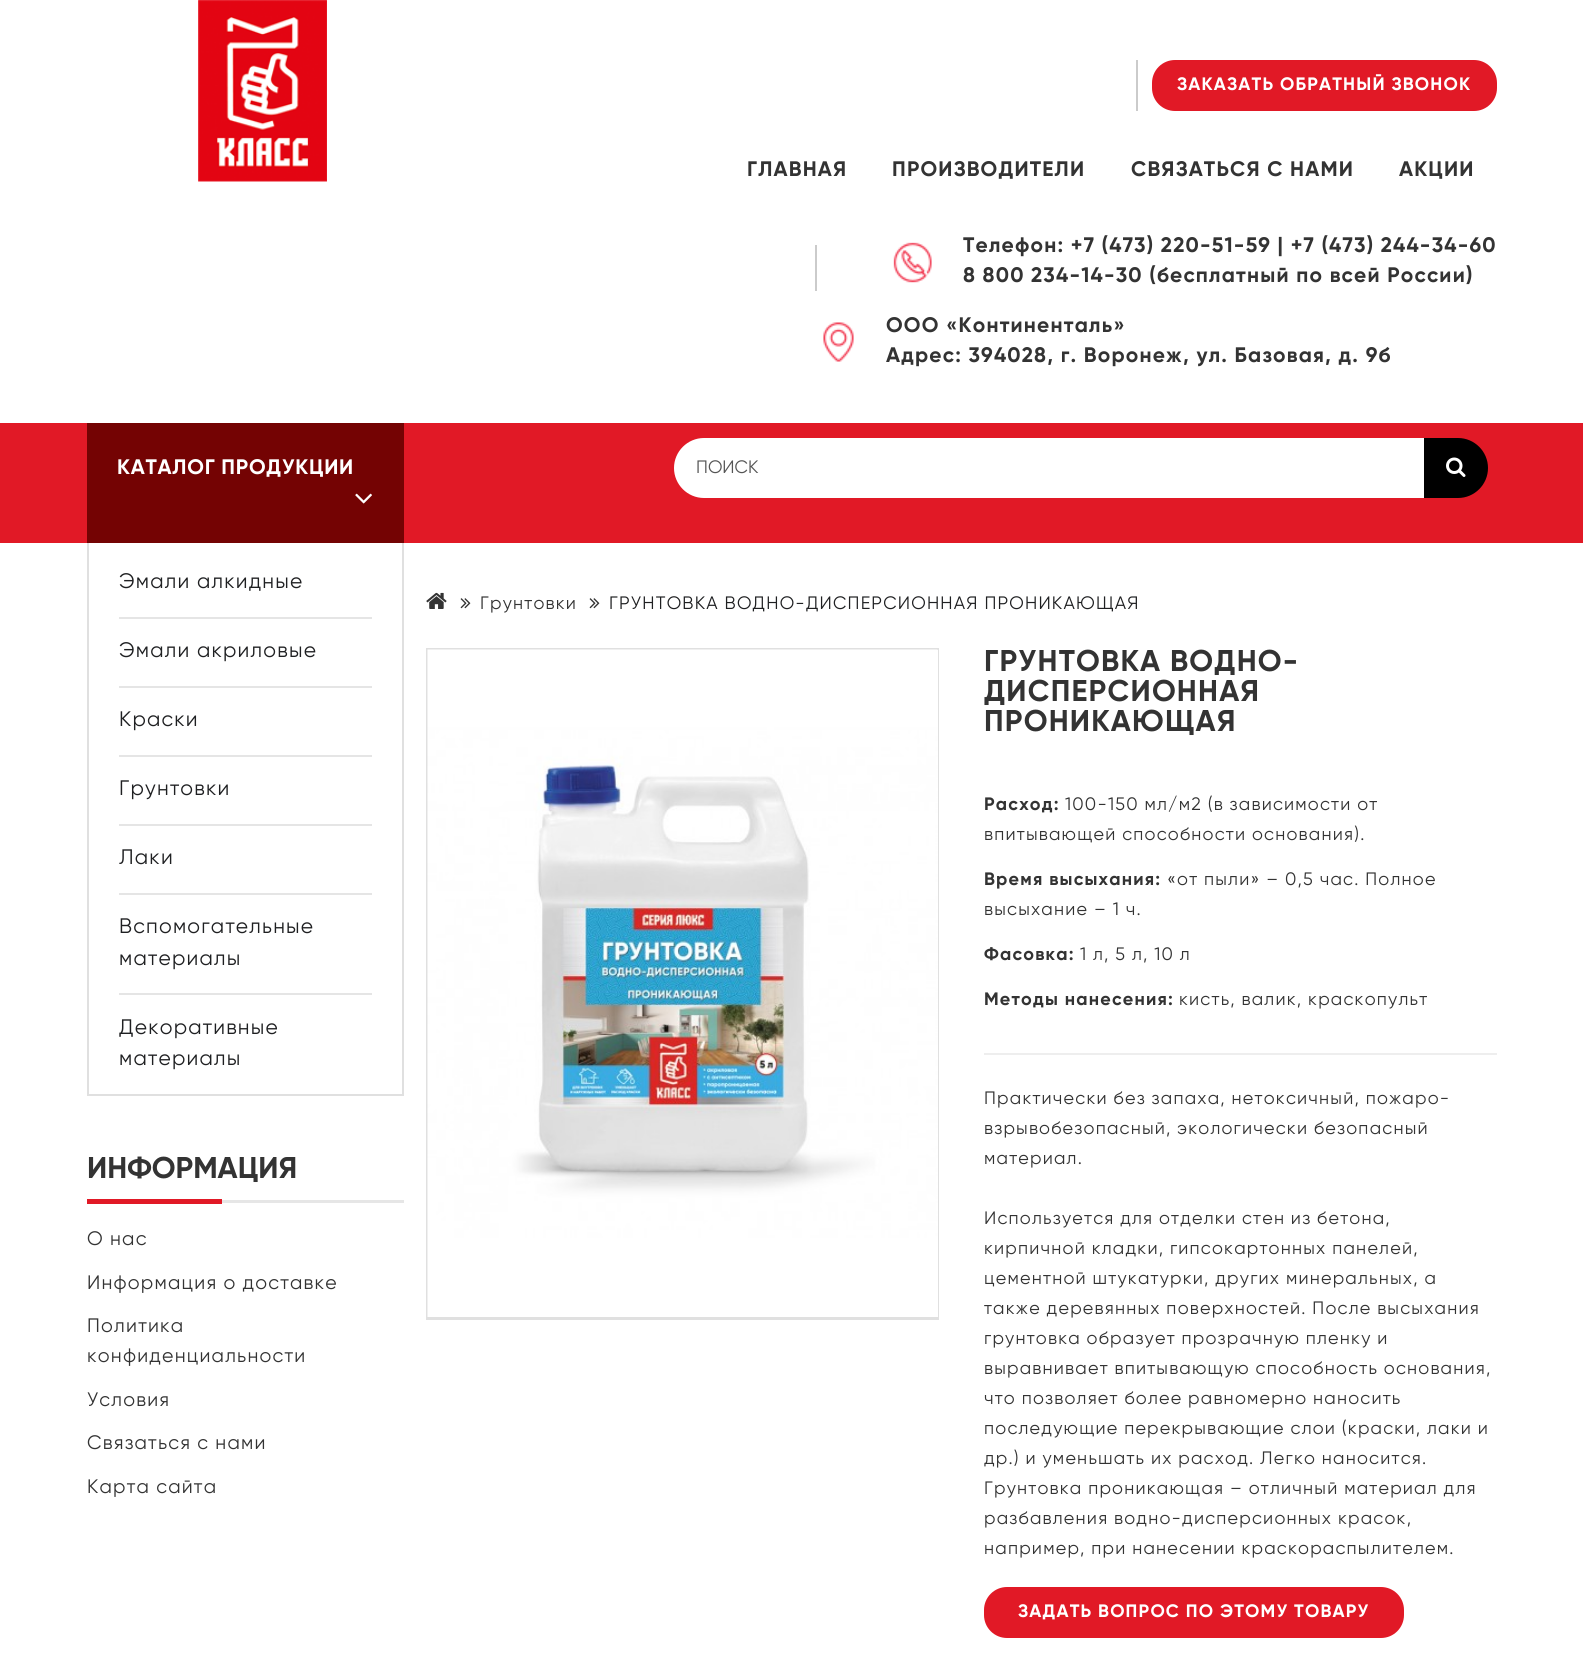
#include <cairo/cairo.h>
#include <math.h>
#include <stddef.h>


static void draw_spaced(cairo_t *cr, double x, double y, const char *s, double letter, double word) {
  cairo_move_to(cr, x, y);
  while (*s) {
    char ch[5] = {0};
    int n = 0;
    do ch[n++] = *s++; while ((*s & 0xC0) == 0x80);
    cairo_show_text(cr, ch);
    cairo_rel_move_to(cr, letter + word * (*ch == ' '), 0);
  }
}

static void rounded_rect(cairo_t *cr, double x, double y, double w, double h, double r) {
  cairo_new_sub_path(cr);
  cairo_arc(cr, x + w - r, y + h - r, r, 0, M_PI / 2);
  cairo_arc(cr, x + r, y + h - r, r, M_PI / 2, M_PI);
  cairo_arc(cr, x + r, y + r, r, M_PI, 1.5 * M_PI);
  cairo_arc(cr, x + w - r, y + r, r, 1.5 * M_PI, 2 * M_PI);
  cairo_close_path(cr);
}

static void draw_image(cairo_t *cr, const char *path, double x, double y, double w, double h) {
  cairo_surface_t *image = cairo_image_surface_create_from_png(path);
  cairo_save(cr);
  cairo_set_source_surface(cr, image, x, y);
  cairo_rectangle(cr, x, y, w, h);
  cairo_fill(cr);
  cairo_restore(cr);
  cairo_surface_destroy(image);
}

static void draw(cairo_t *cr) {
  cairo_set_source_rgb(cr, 1, 1, 1);
  cairo_paint(cr);
  draw_image(cr, "images/1.png", 198, 0, 129, 182);
  cairo_set_source_rgb(cr, 203 / 255.0, 203 / 255.0, 203 / 255.0);
  cairo_rectangle(cr, 1136, 60, 2, 51);
  cairo_fill(cr);
  cairo_set_source_rgb(cr, 225 / 255.0, 25 / 255.0, 38 / 255.0);
  rounded_rect(cr, 1152, 60, 345, 51, 23);
  cairo_fill(cr);
  cairo_set_source_rgb(cr, 203 / 255.0, 203 / 255.0, 203 / 255.0);
  cairo_rectangle(cr, 815, 245, 2, 46);
  cairo_fill(cr);
  draw_image(cr, "images/2.png", 893, 242, 39, 41);
  draw_image(cr, "images/3.png", 823, 322, 31, 40);
  cairo_set_source_rgb(cr, 225 / 255.0, 25 / 255.0, 38 / 255.0);
  cairo_rectangle(cr, 0, 423, 1583, 120);
  cairo_fill(cr);
  cairo_set_source_rgb(cr, 116 / 255.0, 3 / 255.0, 3 / 255.0);
  cairo_rectangle(cr, 87, 423, 317, 120);
  cairo_fill(cr);
  draw_image(cr, "images/4.png", 355, 493, 17, 11);
  cairo_set_source_rgb(cr, 1, 1, 1);
  cairo_new_path(cr);
  cairo_move_to(cr, 704, 438);
  cairo_line_to(cr, 1424, 438);
  cairo_line_to(cr, 1424, 498);
  cairo_line_to(cr, 704, 498);
  cairo_curve_to(cr, 687.5, 498, 674, 484.5, 674, 468);
  cairo_curve_to(cr, 674, 451.5, 687.5, 438, 704, 438);
  cairo_close_path(cr);
  cairo_fill(cr);
  cairo_set_source_rgb(cr, 0, 0, 0);
  cairo_new_path(cr);
  cairo_move_to(cr, 1424, 438);
  cairo_line_to(cr, 1458, 438);
  cairo_curve_to(cr, 1474.5, 438, 1488, 451.5, 1488, 468);
  cairo_curve_to(cr, 1488, 484.5, 1474.5, 498, 1458, 498);
  cairo_line_to(cr, 1424, 498);
  cairo_close_path(cr);
  cairo_fill(cr);
  draw_image(cr, "images/5.png", 1446, 457, 20, 20);
  cairo_set_source_rgb(cr, 224 / 255.0, 224 / 255.0, 224 / 255.0);
  cairo_rectangle(cr, 402, 543, 2, 552);
  cairo_fill(cr);
  cairo_rectangle(cr, 87, 1094, 317, 2);
  cairo_fill(cr);
  cairo_rectangle(cr, 87, 543, 2, 552);
  cairo_fill(cr);
  cairo_set_source_rgb(cr, 229 / 255.0, 229 / 255.0, 229 / 255.0);
  cairo_rectangle(cr, 119, 617, 253, 2);
  cairo_fill(cr);
  cairo_rectangle(cr, 119, 686, 253, 2);
  cairo_fill(cr);
  cairo_rectangle(cr, 119, 755, 253, 2);
  cairo_fill(cr);
  cairo_rectangle(cr, 119, 824, 253, 2);
  cairo_fill(cr);
  cairo_rectangle(cr, 119, 893, 253, 2);
  cairo_fill(cr);
  cairo_rectangle(cr, 119, 993, 253, 2);
  cairo_fill(cr);
  cairo_set_source_rgb(cr, 230 / 255.0, 230 / 255.0, 230 / 255.0);
  cairo_rectangle(cr, 222, 1200, 182, 3);
  cairo_fill(cr);
  cairo_set_source_rgb(cr, 225 / 255.0, 25 / 255.0, 38 / 255.0);
  cairo_rectangle(cr, 87, 1199, 135, 5);
  cairo_fill(cr);
  draw_image(cr, "images/6.png", 426, 592, 21, 17);
  draw_image(cr, "images/7.png", 460, 598, 11, 11);
  draw_image(cr, "images/7.png", 589, 598, 11, 11);
  cairo_set_source_rgb(cr, 224 / 255.0, 224 / 255.0, 224 / 255.0);
  cairo_rectangle(cr, 426, 648, 513, 2);
  cairo_fill(cr);
  cairo_rectangle(cr, 938, 648, 1, 672);
  cairo_fill(cr);
  cairo_rectangle(cr, 426, 1317, 513, 3);
  cairo_fill(cr);
  cairo_rectangle(cr, 426, 648, 2, 672);
  cairo_fill(cr);
  draw_image(cr, "images/8.png", 427, 649, 511, 668);
  cairo_set_source_rgb(cr, 238 / 255.0, 238 / 255.0, 238 / 255.0);
  cairo_rectangle(cr, 984, 1053, 513, 2);
  cairo_fill(cr);
  cairo_set_source_rgb(cr, 225 / 255.0, 25 / 255.0, 38 / 255.0);
  rounded_rect(cr, 984, 1587, 420, 51, 23);
  cairo_fill(cr);
  cairo_select_font_face(cr, "Gilroy", CAIRO_FONT_SLANT_NORMAL, CAIRO_FONT_WEIGHT_BOLD);
  cairo_set_font_size(cr, 18);
  cairo_set_source_rgb(cr, 1, 1, 1);
  draw_spaced(cr, 1177, 90, "ЗАКАЗАТЬ ОБРАТНЫЙ ЗВОНОК", 1.2, 0);
  cairo_set_font_size(cr, 21);
  cairo_set_source_rgb(cr, 51 / 255.0, 51 / 255.0, 51 / 255.0);
  draw_spaced(cr, 747, 176, "ГЛАВНАЯ", 1.2, 0);
  draw_spaced(cr, 892, 176, "ПРОИЗВОДИТЕЛИ", 1.2, 0);
  draw_spaced(cr, 1131, 176, "СВЯЗАТЬСЯ С НАМИ", 1.2, 0);
  draw_spaced(cr, 1399, 176, "АКЦИИ", 1.2, 0);
  draw_spaced(cr, 963, 252, "Телефон: +7 (473) 220-51-59 | +7 (473) 244-34-60", 1.2, 0);
  draw_spaced(cr, 963, 282, "8 800 234-14-30 (бесплатный по всей Pоссии)", 1.2, 0);
  draw_spaced(cr, 886, 332, "ООО «Континенталь»", 1.2, 0);
  draw_spaced(cr, 886, 362, "Адрес: 394028, г. Воронеж, ул. Базовая, д. 9б", 1.2, 0);
  cairo_set_source_rgb(cr, 1, 1, 1);
  draw_spaced(cr, 117, 474, "КАТАЛОГ ПРОДУКЦИИ", 0.75, 0);
  cairo_select_font_face(cr, "Gilroy", CAIRO_FONT_SLANT_NORMAL, CAIRO_FONT_WEIGHT_NORMAL);
  cairo_set_font_size(cr, 18);
  cairo_set_source_rgb(cr, 85 / 255.0, 85 / 255.0, 85 / 255.0);
  cairo_move_to(cr, 696, 473);
  cairo_show_text(cr, "ПОИСК");
  cairo_set_font_size(cr, 21);
  cairo_set_source_rgb(cr, 31 / 255.0, 32 / 255.0, 34 / 255.0);
  draw_spaced(cr, 119, 588, "Эмали алкидные", 1.2, 0);
  draw_spaced(cr, 119, 657, "Эмали акриловые", 1.2, 0);
  draw_spaced(cr, 119, 726, "Краски", 1.2, 0);
  draw_spaced(cr, 119, 795, "Грунтовки", 1.2, 0);
  draw_spaced(cr, 119, 864, "Лаки", 1.2, 0);
  draw_spaced(cr, 119, 933, "Вспомогательные", 1.2, 0);
  draw_spaced(cr, 119, 965, "материалы", 1.2, 0);
  draw_spaced(cr, 119, 1034, "Декоративные", 1.2, 0);
  draw_spaced(cr, 119, 1065, "материалы", 1.2, 0);
  cairo_select_font_face(cr, "Gilroy", CAIRO_FONT_SLANT_NORMAL, CAIRO_FONT_WEIGHT_BOLD);
  cairo_set_font_size(cr, 30);
  cairo_set_source_rgb(cr, 51 / 255.0, 51 / 255.0, 51 / 255.0);
  cairo_move_to(cr, 87, 1178);
  cairo_show_text(cr, "ИНФОРМАЦИЯ");
  cairo_select_font_face(cr, "Gilroy", CAIRO_FONT_SLANT_NORMAL, CAIRO_FONT_WEIGHT_NORMAL);
  cairo_set_font_size(cr, 19.5);
  draw_spaced(cr, 87, 1245, "О нас", 1.2, 0);
  draw_spaced(cr, 87, 1289, "Информация о доставке", 1.2, 0);
  draw_spaced(cr, 87, 1332, "Политика", 1.2, 0);
  draw_spaced(cr, 87, 1362, "конфиденциальности", 1.2, 0);
  draw_spaced(cr, 87, 1406, "Условия", 1.2, 0);
  draw_spaced(cr, 87, 1449, "Связаться с нами", 1.2, 0);
  draw_spaced(cr, 87, 1493, "Карта сайта", 1.2, 0);
  cairo_set_font_size(cr, 18);
  draw_spaced(cr, 480, 609, "Грунтовки", 1.2, 0);
  cairo_set_source_rgb(cr, 31 / 255.0, 32 / 255.0, 34 / 255.0);
  draw_spaced(cr, 609, 609, "ГРУНТОВКА ВОДНО-ДИСПЕРСИОННАЯ ПРОНИКАЮЩАЯ", 1.2, 0);
  cairo_select_font_face(cr, "Gilroy", CAIRO_FONT_SLANT_NORMAL, CAIRO_FONT_WEIGHT_BOLD);
  cairo_set_font_size(cr, 30);
  cairo_set_source_rgb(cr, 51 / 255.0, 51 / 255.0, 51 / 255.0);
  draw_spaced(cr, 984, 671, "ГРУНТОВКА ВОДНО-", 1.2, 0);
  draw_spaced(cr, 984, 701, "ДИСПЕРСИОННАЯ", 1.2, 0);
  draw_spaced(cr, 984, 731, "ПРОНИКАЮЩАЯ", 1.2, 0);
  cairo_set_font_size(cr, 18);
  draw_spaced(cr, 984, 810, "Расход:", 1.2, 0);
  cairo_select_font_face(cr, "Gilroy", CAIRO_FONT_SLANT_NORMAL, CAIRO_FONT_WEIGHT_NORMAL);
  draw_spaced(cr, 1065, 810, "100-150 мл/м2 (в зависимости от", 1.2, 0);
  draw_spaced(cr, 984, 840, "впитывающей способности основания).", 1.2, 0);
  cairo_select_font_face(cr, "Gilroy", CAIRO_FONT_SLANT_NORMAL, CAIRO_FONT_WEIGHT_BOLD);
  draw_spaced(cr, 984, 885, "Время высыхания:", 1.2, 0);
  cairo_select_font_face(cr, "Gilroy", CAIRO_FONT_SLANT_NORMAL, CAIRO_FONT_WEIGHT_NORMAL);
  draw_spaced(cr, 1167, 885, "«от пыли» – 0,5 час. Полное", 1.2, 0);
  draw_spaced(cr, 984, 915, "высыхание – 1 ч.", 1.2, 0);
  cairo_select_font_face(cr, "Gilroy", CAIRO_FONT_SLANT_NORMAL, CAIRO_FONT_WEIGHT_BOLD);
  draw_spaced(cr, 984, 960, "Фасовка:", 1.2, 0);
  cairo_select_font_face(cr, "Gilroy", CAIRO_FONT_SLANT_NORMAL, CAIRO_FONT_WEIGHT_NORMAL);
  draw_spaced(cr, 1080, 960, "1 л, 5 л, 10 л", 1.2, 0);
  cairo_select_font_face(cr, "Gilroy", CAIRO_FONT_SLANT_NORMAL, CAIRO_FONT_WEIGHT_BOLD);
  draw_spaced(cr, 984, 1005, "Методы нанесения:", 1.2, 0);
  cairo_select_font_face(cr, "Gilroy", CAIRO_FONT_SLANT_NORMAL, CAIRO_FONT_WEIGHT_NORMAL);
  draw_spaced(cr, 1179, 1005, "кисть, валик, краскопульт", 1.2, 0);
  draw_spaced(cr, 984, 1104, "Практически без запаха, нетоксичный, пожаро-", 1.2, 0);
  draw_spaced(cr, 984, 1134, "взрывобезопасный, экологически безопасный", 1.2, 0);
  draw_spaced(cr, 984, 1164, "материал.", 1.2, 0);
  draw_spaced(cr, 984, 1224, "Используется для отделки стен из бетона,", 1.2, 0);
  draw_spaced(cr, 984, 1254, "кирпичной кладки, гипсокартонных панелей,", 1.2, 0);
  draw_spaced(cr, 984, 1284, "цементной штукатурки, других минеральных, а", 1.2, 0);
  draw_spaced(cr, 984, 1314, "также деревянных поверхностей. После высыхания", 1.2, 0);
  draw_spaced(cr, 984, 1344, "грунтовка образует прозрачную пленку и", 1.2, 0);
  draw_spaced(cr, 984, 1374, "выравнивает впитывающую способность основания,", 1.2, 0);
  draw_spaced(cr, 984, 1404, "что позволяет более равномерно наносить", 1.2, 0);
  draw_spaced(cr, 984, 1434, "последующие перекрывающие слои (краски, лаки и", 1.2, 0);
  draw_spaced(cr, 984, 1464, "др.) и уменьшать их расход. Легко наносится.", 1.2, 0);
  draw_spaced(cr, 984, 1494, "Грунтовка проникающая – отличный материал для", 1.2, 0);
  draw_spaced(cr, 984, 1524, "разбавления водно-дисперсионных красок,", 1.2, 0);
  draw_spaced(cr, 984, 1554, "например, при нанесении краскораспылителем.", 1.2, 0);
  cairo_select_font_face(cr, "Gilroy", CAIRO_FONT_SLANT_NORMAL, CAIRO_FONT_WEIGHT_BOLD);
  cairo_set_source_rgb(cr, 1, 1, 1);
  draw_spaced(cr, 1018, 1617, "ЗАДАТЬ ВОПРОС ПО ЭТОМУ ТОВАРУ", 1.2, 0);
}

int main(void) {
  cairo_surface_t *surface = cairo_image_surface_create(CAIRO_FORMAT_RGB24, 1583, 1656);
  cairo_t *cr = cairo_create(surface);
  cairo_font_options_t *options = cairo_font_options_create();
  cairo_font_options_set_hint_metrics(options, CAIRO_HINT_METRICS_OFF);
  cairo_font_options_set_hint_style(options, CAIRO_HINT_STYLE_NONE);
  cairo_set_font_options(cr, options);
  cairo_set_miter_limit(cr, 4);
  draw(cr);
  cairo_surface_write_to_png(surface, "out.png");
  cairo_font_options_destroy(options);
  cairo_destroy(cr);
  cairo_surface_destroy(surface);
  return 0;
}
